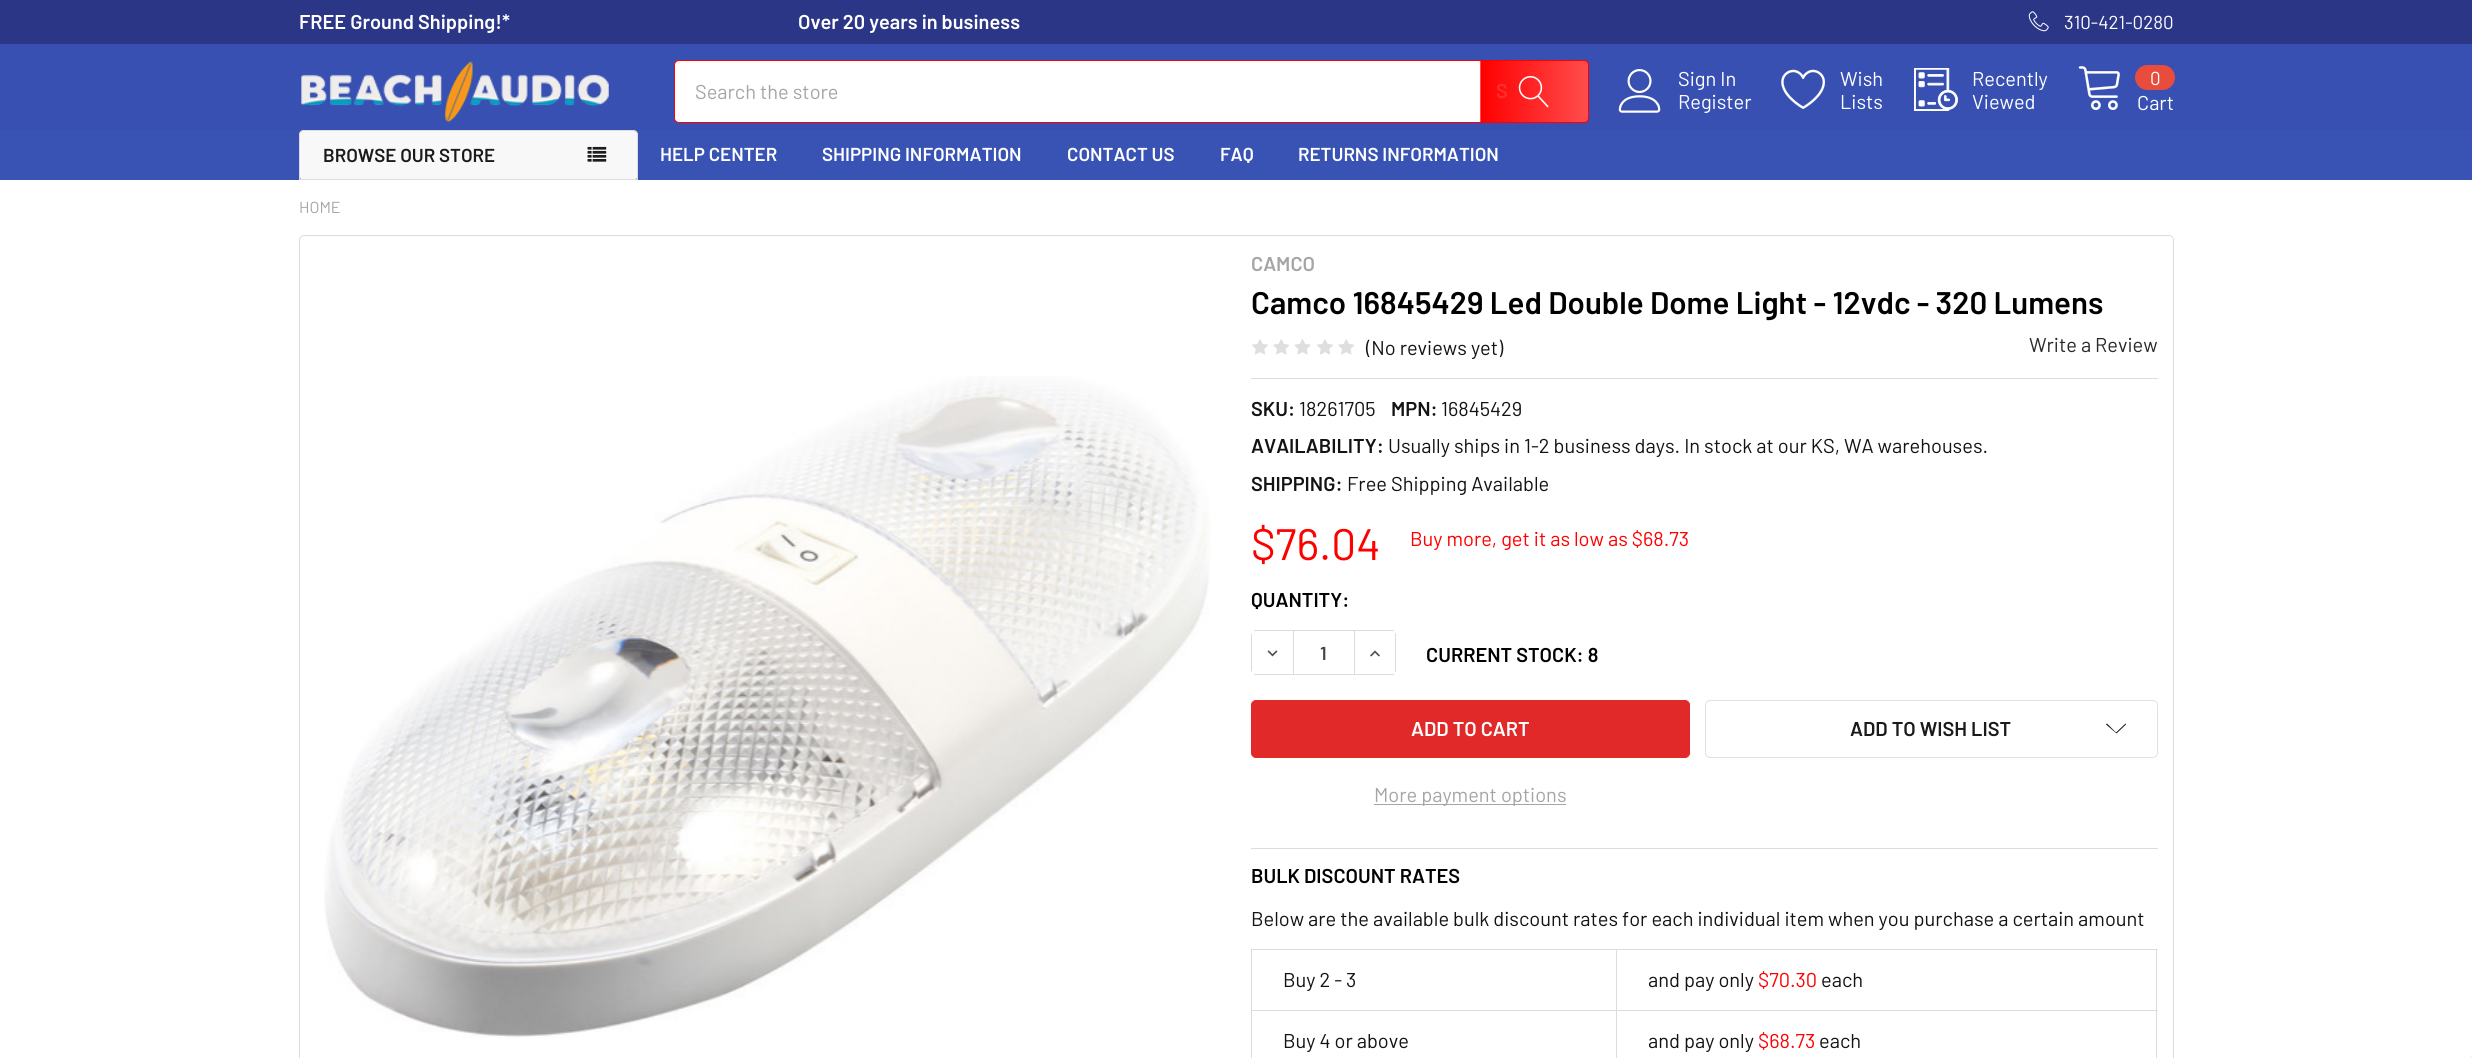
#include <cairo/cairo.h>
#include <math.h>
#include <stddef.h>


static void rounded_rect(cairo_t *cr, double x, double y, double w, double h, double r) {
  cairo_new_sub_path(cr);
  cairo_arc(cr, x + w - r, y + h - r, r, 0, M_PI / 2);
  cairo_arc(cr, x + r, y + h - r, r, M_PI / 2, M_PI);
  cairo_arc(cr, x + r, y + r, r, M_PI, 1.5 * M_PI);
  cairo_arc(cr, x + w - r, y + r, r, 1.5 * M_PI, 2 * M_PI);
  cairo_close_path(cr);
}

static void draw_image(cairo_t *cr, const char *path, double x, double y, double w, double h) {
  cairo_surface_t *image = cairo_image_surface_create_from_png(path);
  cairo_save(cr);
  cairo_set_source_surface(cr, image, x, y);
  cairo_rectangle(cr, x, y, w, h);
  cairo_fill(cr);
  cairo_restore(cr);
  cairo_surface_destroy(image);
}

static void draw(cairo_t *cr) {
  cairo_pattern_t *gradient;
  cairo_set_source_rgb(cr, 1, 1, 1);
  cairo_paint(cr);
  cairo_set_source_rgb(cr, 55 / 255.0, 80 / 255.0, 178 / 255.0);
  cairo_rectangle(cr, 0, 45, 2472, 85);
  cairo_fill(cr);
  cairo_set_source_rgb(cr, 43 / 255.0, 54 / 255.0, 135 / 255.0);
  cairo_rectangle(cr, 0, 0, 2472, 44);
  cairo_fill(cr);
  cairo_set_source_rgb(cr, 56 / 255.0, 79 / 255.0, 178 / 255.0);
  cairo_rectangle(cr, 0, 44, 2472, 1);
  cairo_fill(cr);
  draw_image(cr, "images/1.png", 2028, 11, 21, 21);
  draw_image(cr, "images/2.png", 301, 60, 308, 63);
  cairo_set_source_rgb(cr, 1, 1, 1);
  rounded_rect(cr, 674.5, 60.5, 914, 62, 4.5);
  cairo_fill_preserve(cr);
  cairo_set_source_rgb(cr, 1, 0, 0);
  cairo_set_line_width(cr, 1);
  cairo_stroke(cr);
  gradient = cairo_pattern_create_linear(1375, 91, 1481, 91);
  cairo_pattern_add_color_stop_rgba(gradient, 0, 1, 0, 0, 1);
  cairo_pattern_add_color_stop_rgba(gradient, 1, 1, 0, 0, 0.7);
  cairo_set_source(cr, gradient);
  cairo_pattern_destroy(gradient);
  cairo_rectangle(cr, 1480, 60, 1, 63);
  cairo_fill(cr);
  cairo_save(cr);
  cairo_new_path(cr);
  cairo_move_to(cr, 1480, 60);
  cairo_line_to(cr, 1584, 60);
  cairo_curve_to(cr, 1587, 60, 1589, 62, 1589, 65);
  cairo_line_to(cr, 1589, 118);
  cairo_curve_to(cr, 1589, 121, 1587, 123, 1584, 123);
  cairo_line_to(cr, 1480, 123);
  cairo_close_path(cr);
  cairo_clip(cr);
  gradient = cairo_pattern_create_linear(1481, 91, 1588, 91);
  cairo_pattern_add_color_stop_rgba(gradient, 0, 1, 0, 0, 1);
  cairo_pattern_add_color_stop_rgba(gradient, 1, 1, 0, 0, 0.7);
  cairo_set_source(cr, gradient);
  cairo_pattern_destroy(gradient);
  cairo_rectangle(cr, 1481, 60, 107, 63);
  cairo_fill(cr);
  gradient = cairo_pattern_create_linear(1588, 91, 1694, 91);
  cairo_pattern_add_color_stop_rgba(gradient, 0, 1, 0, 0, 1);
  cairo_pattern_add_color_stop_rgba(gradient, 1, 1, 0, 0, 0.7);
  cairo_set_source(cr, gradient);
  cairo_pattern_destroy(gradient);
  cairo_rectangle(cr, 1588, 60, 1, 63);
  cairo_fill(cr);
  cairo_restore(cr);
  draw_image(cr, "images/3.png", 1518, 76, 31, 32);
  draw_image(cr, "images/4.png", 1618, 69, 43, 44);
  draw_image(cr, "images/5.png", 1781, 69, 44, 40);
  draw_image(cr, "images/6.png", 1914, 68, 44, 43);
  draw_image(cr, "images/7.png", 2078, 66, 42, 44);
  cairo_set_source_rgb(cr, 231 / 255.0, 76 / 255.0, 60 / 255.0);
  rounded_rect(cr, 2135, 65, 40, 25, 12.5);
  cairo_fill(cr);
  cairo_set_source_rgb(cr, 56 / 255.0, 83 / 255.0, 180 / 255.0);
  cairo_rectangle(cr, 0, 130, 2472, 50);
  cairo_fill(cr);
  cairo_set_source_rgb(cr, 248 / 255.0, 248 / 255.0, 248 / 255.0);
  rounded_rect(cr, 299, 130, 339, 50, 5);
  cairo_fill(cr);
  cairo_new_path(cr);
  cairo_move_to(cr, 304, 130.5);
  cairo_line_to(cr, 633, 130.5);
  cairo_curve_to(cr, 635.5, 130.5, 637.5, 132.5, 637.5, 135);
  cairo_line_to(cr, 637.5, 179.5);
  cairo_line_to(cr, 299.5, 179.5);
  cairo_line_to(cr, 299.5, 135);
  cairo_curve_to(cr, 299.5, 132.5, 301.5, 130.5, 304, 130.5);
  cairo_close_path(cr);
  cairo_set_source_rgb(cr, 220 / 255.0, 220 / 255.0, 220 / 255.0);
  cairo_stroke(cr);
  draw_image(cr, "images/8.png", 587, 146, 20, 16);
  rounded_rect(cr, 299.5, 235.5, 1874, 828, 4.5);
  cairo_stroke(cr);
  draw_image(cr, "images/9.png", 324, 376, 886, 662);
  draw_image(cr, "images/10.png", 1252, 339, 16, 16);
  draw_image(cr, "images/11.png", 1273, 339, 17, 16);
  draw_image(cr, "images/12.png", 1294, 339, 17, 16);
  draw_image(cr, "images/10.png", 1317, 339, 16, 16);
  draw_image(cr, "images/11.png", 1338, 339, 17, 16);
  cairo_rectangle(cr, 1251, 378, 907, 1);
  cairo_fill(cr);
  cairo_rectangle(cr, 1254, 630, 140, 1);
  cairo_fill(cr);
  cairo_rectangle(cr, 1254, 674, 140, 1);
  cairo_fill(cr);
  cairo_rectangle(cr, 1293, 631, 1, 43);
  cairo_fill(cr);
  cairo_new_path(cr);
  cairo_move_to(cr, 1252, 633);
  cairo_line_to(cr, 1252, 672);
  cairo_curve_to(cr, 1251.5, 671.5, 1251, 670.5, 1251, 670);
  cairo_line_to(cr, 1251, 635);
  cairo_curve_to(cr, 1251, 634.5, 1251.5, 633.5, 1252, 633);
  cairo_close_path(cr);
  cairo_fill(cr);
  draw_image(cr, "images/13.png", 1267, 650, 11, 7);
  cairo_new_path(cr);
  cairo_move_to(cr, 1395, 672.5);
  cairo_line_to(cr, 1395, 632.5);
  cairo_line_to(cr, 1396, 634);
  cairo_line_to(cr, 1396, 671);
  cairo_close_path(cr);
  cairo_fill(cr);
  cairo_rectangle(cr, 1354, 631, 1, 43);
  cairo_fill(cr);
  draw_image(cr, "images/14.png", 1370, 650, 10, 7);
  cairo_set_source_rgb(cr, 225 / 255.0, 41 / 255.0, 41 / 255.0);
  rounded_rect(cr, 1251.5, 700.5, 438, 57, 4.5);
  cairo_fill_preserve(cr);
  cairo_stroke(cr);
  cairo_set_source_rgb(cr, 165 / 255.0, 165 / 255.0, 165 / 255.0);
  cairo_rectangle(cr, 1374, 804, 192, 1);
  cairo_fill(cr);
  rounded_rect(cr, 1705.5, 700.5, 452, 57, 4.5);
  cairo_set_source_rgb(cr, 224 / 255.0, 225 / 255.0, 228 / 255.0);
  cairo_stroke(cr);
  cairo_set_source_rgb(cr, 26 / 255.0, 26 / 255.0, 26 / 255.0);
  cairo_set_fill_rule(cr, CAIRO_FILL_RULE_EVEN_ODD);
  cairo_new_path(cr);
  cairo_move_to(cr, 2116, 732.5);
  cairo_line_to(cr, 2125.5, 723.5);
  cairo_line_to(cr, 2126, 724.5);
  cairo_line_to(cr, 2116.5, 733.5);
  cairo_line_to(cr, 2106, 724.5);
  cairo_line_to(cr, 2107, 723.5);
  cairo_close_path(cr);
  cairo_fill(cr);
  cairo_set_source_rgb(cr, 220 / 255.0, 220 / 255.0, 220 / 255.0);
  cairo_rectangle(cr, 1251, 848, 907, 1);
  cairo_fill(cr);
  cairo_rectangle(cr, 1251, 949, 907, 1);
  cairo_fill(cr);
  cairo_rectangle(cr, 2156, 949, 1, 109);
  cairo_fill(cr);
  cairo_rectangle(cr, 1251, 949, 1, 109);
  cairo_fill(cr);
  cairo_rectangle(cr, 1251, 1010, 907, 1);
  cairo_fill(cr);
  cairo_rectangle(cr, 1616, 949, 1, 109);
  cairo_fill(cr);
  cairo_set_source_rgb(cr, 245 / 255.0, 245 / 255.0, 245 / 255.0);
  cairo_rectangle(cr, 2470, 1056, 2, 2);
  cairo_fill(cr);
  cairo_select_font_face(cr, "Barlow SemiBold", CAIRO_FONT_SLANT_NORMAL, CAIRO_FONT_WEIGHT_NORMAL);
  cairo_set_font_size(cr, 20);
  cairo_set_source_rgb(cr, 1, 1, 1);
  cairo_move_to(cr, 299, 29);
  cairo_show_text(cr, "FREE Ground Shipping!*");
  cairo_move_to(cr, 798, 29);
  cairo_show_text(cr, "Over 20 years in business");
  cairo_select_font_face(cr, "Barlow", CAIRO_FONT_SLANT_NORMAL, CAIRO_FONT_WEIGHT_NORMAL);
  cairo_set_font_size(cr, 18.75);
  cairo_move_to(cr, 2064, 29);
  cairo_show_text(cr, "310-421-0280");
  cairo_set_font_size(cr, 20);
  cairo_set_source_rgb(cr, 165 / 255.0, 165 / 255.0, 165 / 255.0);
  cairo_move_to(cr, 695, 99);
  cairo_show_text(cr, "Search the store");
  cairo_select_font_face(cr, "Barlow SemiBold", CAIRO_FONT_SLANT_NORMAL, CAIRO_FONT_WEIGHT_NORMAL);
  cairo_set_source_rgb(cr, 1, 46 / 255.0, 46 / 255.0);
  cairo_move_to(cr, 1496, 98);
  cairo_show_text(cr, "S");
  cairo_select_font_face(cr, "Barlow", CAIRO_FONT_SLANT_NORMAL, CAIRO_FONT_WEIGHT_NORMAL);
  cairo_set_source_rgb(cr, 1, 1, 1);
  cairo_move_to(cr, 1678, 86);
  cairo_show_text(cr, "Sign In");
  cairo_move_to(cr, 1678, 109);
  cairo_show_text(cr, "Register");
  cairo_move_to(cr, 1840, 86);
  cairo_show_text(cr, "Wish");
  cairo_move_to(cr, 1840, 109);
  cairo_show_text(cr, "Lists");
  cairo_move_to(cr, 1972, 86);
  cairo_show_text(cr, "Recently");
  cairo_move_to(cr, 1972, 109);
  cairo_show_text(cr, "Viewed");
  cairo_set_font_size(cr, 18.75);
  cairo_move_to(cr, 2150, 85);
  cairo_show_text(cr, "0");
  cairo_set_font_size(cr, 20);
  cairo_move_to(cr, 2137, 110);
  cairo_show_text(cr, "Cart");
  cairo_select_font_face(cr, "Barlow SemiBold", CAIRO_FONT_SLANT_NORMAL, CAIRO_FONT_WEIGHT_NORMAL);
  cairo_set_font_size(cr, 18.75);
  cairo_set_source_rgb(cr, 26 / 255.0, 26 / 255.0, 26 / 255.0);
  cairo_move_to(cr, 323, 162);
  cairo_show_text(cr, "BROWSE OUR STORE");
  cairo_set_source_rgb(cr, 1, 1, 1);
  cairo_move_to(cr, 660, 161);
  cairo_show_text(cr, "HELP CENTER");
  cairo_move_to(cr, 822, 161);
  cairo_show_text(cr, "SHIPPING INFORMATION");
  cairo_move_to(cr, 1067, 161);
  cairo_show_text(cr, "CONTACT US");
  cairo_move_to(cr, 1220, 161);
  cairo_show_text(cr, "FAQ");
  cairo_move_to(cr, 1298, 161);
  cairo_show_text(cr, "RETURNS INFORMATION");
  cairo_select_font_face(cr, "Barlow", CAIRO_FONT_SLANT_NORMAL, CAIRO_FONT_WEIGHT_NORMAL);
  cairo_set_font_size(cr, 16);
  cairo_set_source_rgb(cr, 165 / 255.0, 165 / 255.0, 165 / 255.0);
  cairo_move_to(cr, 299, 213);
  cairo_show_text(cr, "HOME");
  cairo_select_font_face(cr, "Barlow SemiBold", CAIRO_FONT_SLANT_NORMAL, CAIRO_FONT_WEIGHT_NORMAL);
  cairo_set_font_size(cr, 20);
  cairo_move_to(cr, 1251, 271);
  cairo_show_text(cr, "CAMCO");
  cairo_set_font_size(cr, 31.25);
  cairo_set_source_rgb(cr, 0, 0, 0);
  cairo_move_to(cr, 1251, 314);
  cairo_show_text(cr, "Camco 16845429 Led Double Dome Light - 12vdc - 320 Lumens");
  cairo_select_font_face(cr, "Barlow", CAIRO_FONT_SLANT_NORMAL, CAIRO_FONT_WEIGHT_NORMAL);
  cairo_set_font_size(cr, 20);
  cairo_set_source_rgb(cr, 19 / 255.0, 19 / 255.0, 19 / 255.0);
  cairo_move_to(cr, 1366, 355);
  cairo_show_text(cr, "(No reviews yet)");
  cairo_set_source_rgb(cr, 40 / 255.0, 40 / 255.0, 40 / 255.0);
  cairo_move_to(cr, 2029, 352);
  cairo_show_text(cr, "Write a Review");
  cairo_select_font_face(cr, "Barlow SemiBold", CAIRO_FONT_SLANT_NORMAL, CAIRO_FONT_WEIGHT_NORMAL);
  cairo_set_source_rgb(cr, 19 / 255.0, 19 / 255.0, 19 / 255.0);
  cairo_move_to(cr, 1251, 416);
  cairo_show_text(cr, "SKU:");
  cairo_select_font_face(cr, "Barlow", CAIRO_FONT_SLANT_NORMAL, CAIRO_FONT_WEIGHT_NORMAL);
  cairo_move_to(cr, 1299, 416);
  cairo_show_text(cr, "18261705");
  cairo_select_font_face(cr, "Barlow SemiBold", CAIRO_FONT_SLANT_NORMAL, CAIRO_FONT_WEIGHT_NORMAL);
  cairo_move_to(cr, 1391, 416);
  cairo_show_text(cr, "MPN:");
  cairo_select_font_face(cr, "Barlow", CAIRO_FONT_SLANT_NORMAL, CAIRO_FONT_WEIGHT_NORMAL);
  cairo_move_to(cr, 1441, 416);
  cairo_show_text(cr, "16845429");
  cairo_select_font_face(cr, "Barlow SemiBold", CAIRO_FONT_SLANT_NORMAL, CAIRO_FONT_WEIGHT_NORMAL);
  cairo_move_to(cr, 1251, 453);
  cairo_show_text(cr, "AVAILABILITY:");
  cairo_select_font_face(cr, "Barlow", CAIRO_FONT_SLANT_NORMAL, CAIRO_FONT_WEIGHT_NORMAL);
  cairo_move_to(cr, 1388, 453);
  cairo_show_text(cr, "Usually ships in 1-2 business days. In stock at our KS, WA warehouses.");
  cairo_select_font_face(cr, "Barlow SemiBold", CAIRO_FONT_SLANT_NORMAL, CAIRO_FONT_WEIGHT_NORMAL);
  cairo_move_to(cr, 1251, 491);
  cairo_show_text(cr, "SHIPPING:");
  cairo_select_font_face(cr, "Barlow", CAIRO_FONT_SLANT_NORMAL, CAIRO_FONT_WEIGHT_NORMAL);
  cairo_move_to(cr, 1347, 491);
  cairo_show_text(cr, "Free Shipping Available");
  cairo_set_font_size(cr, 44);
  cairo_set_source_rgb(cr, 1, 0, 0);
  cairo_move_to(cr, 1251, 560);
  cairo_show_text(cr, "$76.04");
  cairo_set_font_size(cr, 20);
  cairo_move_to(cr, 1410, 546);
  cairo_show_text(cr, "Buy more, get it as low as $68.73");
  cairo_select_font_face(cr, "Barlow SemiBold", CAIRO_FONT_SLANT_NORMAL, CAIRO_FONT_WEIGHT_NORMAL);
  cairo_set_source_rgb(cr, 0, 0, 0);
  cairo_move_to(cr, 1251, 607);
  cairo_show_text(cr, "QUANTITY:");
  cairo_set_font_size(cr, 18.75);
  cairo_set_source_rgb(cr, 69 / 255.0, 69 / 255.0, 69 / 255.0);
  cairo_move_to(cr, 1320, 660);
  cairo_show_text(cr, "1");
  cairo_set_font_size(cr, 20);
  cairo_set_source_rgb(cr, 0, 0, 0);
  cairo_move_to(cr, 1426, 662);
  cairo_show_text(cr, "CURRENT STOCK: 8");
  cairo_set_source_rgb(cr, 1, 1, 1);
  cairo_move_to(cr, 1411, 736);
  cairo_show_text(cr, "ADD TO CART");
  cairo_select_font_face(cr, "Barlow", CAIRO_FONT_SLANT_NORMAL, CAIRO_FONT_WEIGHT_NORMAL);
  cairo_set_source_rgb(cr, 165 / 255.0, 165 / 255.0, 165 / 255.0);
  cairo_move_to(cr, 1374, 802);
  cairo_show_text(cr, "More payment options");
  cairo_select_font_face(cr, "Barlow SemiBold", CAIRO_FONT_SLANT_NORMAL, CAIRO_FONT_WEIGHT_NORMAL);
  cairo_set_source_rgb(cr, 26 / 255.0, 26 / 255.0, 26 / 255.0);
  cairo_move_to(cr, 1850, 736);
  cairo_show_text(cr, "ADD TO WISH LIST");
  cairo_set_source_rgb(cr, 0, 0, 0);
  cairo_move_to(cr, 1251, 883);
  cairo_show_text(cr, "BULK DISCOUNT RATES");
  cairo_select_font_face(cr, "Barlow", CAIRO_FONT_SLANT_NORMAL, CAIRO_FONT_WEIGHT_NORMAL);
  cairo_set_source_rgb(cr, 19 / 255.0, 19 / 255.0, 19 / 255.0);
  cairo_move_to(cr, 1251, 926);
  cairo_show_text(cr, "Below are the available bulk discount rates for each individual item when you purchase a certain amount");
  cairo_move_to(cr, 1283, 987);
  cairo_show_text(cr, "Buy 2 - 3");
  cairo_move_to(cr, 1648, 987);
  cairo_show_text(cr, "and pay only");
  cairo_set_source_rgb(cr, 1, 0, 0);
  cairo_move_to(cr, 1758, 987);
  cairo_show_text(cr, "$70.30");
  cairo_set_source_rgb(cr, 19 / 255.0, 19 / 255.0, 19 / 255.0);
  cairo_move_to(cr, 1821, 987);
  cairo_show_text(cr, "each");
  cairo_move_to(cr, 1283, 1048);
  cairo_show_text(cr, "Buy 4 or above");
  cairo_move_to(cr, 1648, 1048);
  cairo_show_text(cr, "and pay only");
  cairo_set_source_rgb(cr, 1, 0, 0);
  cairo_move_to(cr, 1758, 1048);
  cairo_show_text(cr, "$68.73");
  cairo_set_source_rgb(cr, 19 / 255.0, 19 / 255.0, 19 / 255.0);
  cairo_move_to(cr, 1819, 1048);
  cairo_show_text(cr, "each");
}

int main(void) {
  cairo_surface_t *surface = cairo_image_surface_create(CAIRO_FORMAT_RGB24, 2472, 1058);
  cairo_t *cr = cairo_create(surface);
  cairo_font_options_t *options = cairo_font_options_create();
  cairo_font_options_set_hint_metrics(options, CAIRO_HINT_METRICS_OFF);
  cairo_font_options_set_hint_style(options, CAIRO_HINT_STYLE_NONE);
  cairo_set_font_options(cr, options);
  cairo_set_miter_limit(cr, 4);
  draw(cr);
  cairo_surface_write_to_png(surface, "out.png");
  cairo_font_options_destroy(options);
  cairo_destroy(cr);
  cairo_surface_destroy(surface);
  return 0;
}
